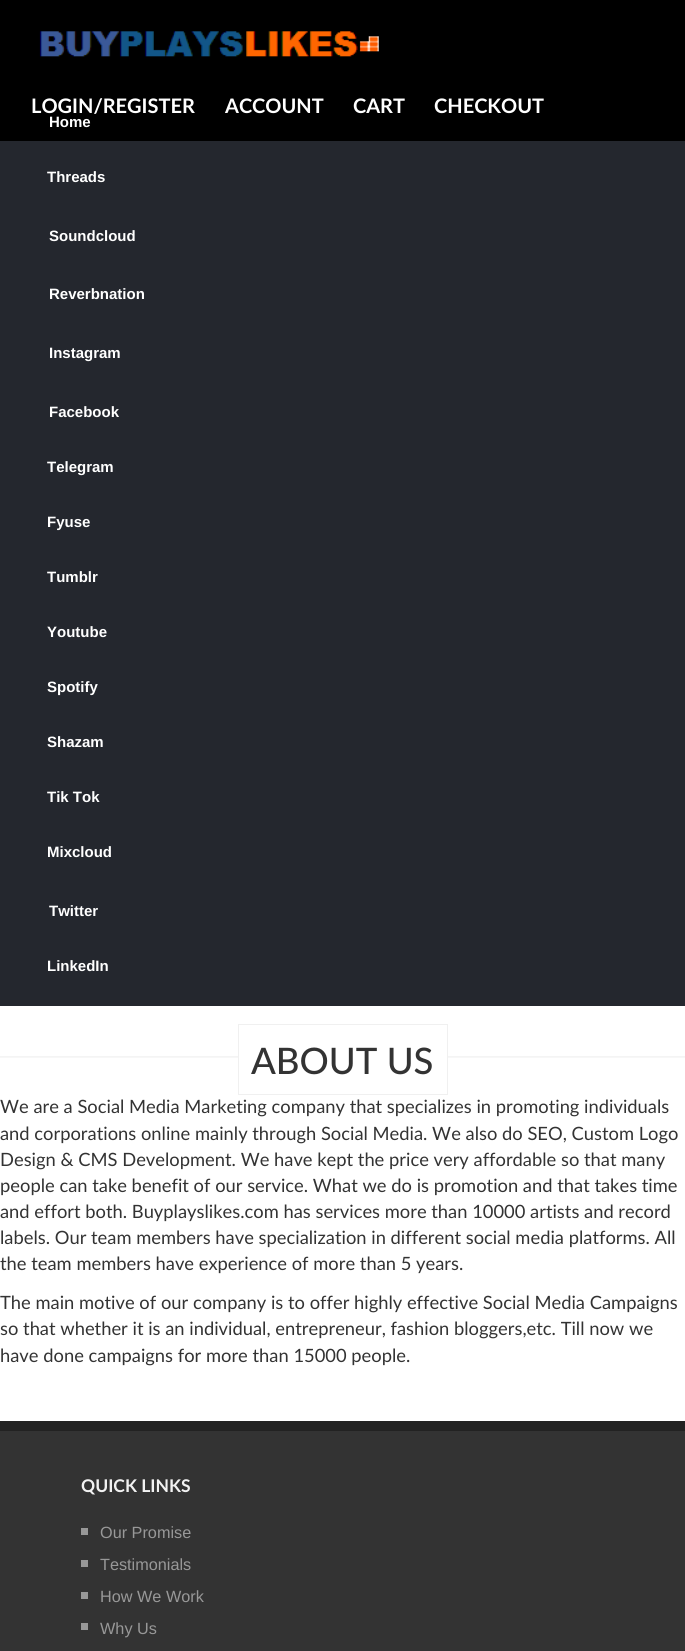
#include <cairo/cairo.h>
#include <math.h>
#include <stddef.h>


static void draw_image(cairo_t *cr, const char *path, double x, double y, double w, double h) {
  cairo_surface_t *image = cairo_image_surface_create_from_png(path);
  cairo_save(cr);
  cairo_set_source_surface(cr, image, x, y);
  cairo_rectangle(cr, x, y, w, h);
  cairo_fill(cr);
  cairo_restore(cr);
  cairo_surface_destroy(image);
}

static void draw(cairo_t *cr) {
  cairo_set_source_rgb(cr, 1, 1, 1);
  cairo_paint(cr);
  cairo_set_source_rgb(cr, 0, 0, 0);
  cairo_rectangle(cr, 0, 0, 685, 141);
  cairo_fill(cr);
  draw_image(cr, "images/1.png", 39, 31, 340, 26);
  cairo_set_source_rgb(cr, 36 / 255.0, 39 / 255.0, 46 / 255.0);
  cairo_rectangle(cr, 0, 141, 685, 865);
  cairo_fill(cr);
  draw_image(cr, "images/2.png", 0, 1056, 685, 2);
  cairo_set_source_rgb(cr, 1, 1, 1);
  cairo_rectangle(cr, 239, 1056, 208, 2);
  cairo_fill(cr);
  cairo_rectangle(cr, 238.5, 1024.5, 209, 70);
  cairo_set_source_rgb(cr, 240 / 255.0, 240 / 255.0, 240 / 255.0);
  cairo_set_line_width(cr, 1);
  cairo_stroke(cr);
  cairo_set_source_rgb(cr, 51 / 255.0, 51 / 255.0, 51 / 255.0);
  cairo_rectangle(cr, 0, 1431, 685, 220);
  cairo_fill(cr);
  cairo_set_source_rgb(cr, 34 / 255.0, 34 / 255.0, 34 / 255.0);
  cairo_rectangle(cr, 0, 1421, 685, 10);
  cairo_fill(cr);
  cairo_set_source_rgb(cr, 152 / 255.0, 152 / 255.0, 152 / 255.0);
  cairo_rectangle(cr, 81, 1528, 7, 7);
  cairo_fill(cr);
  cairo_rectangle(cr, 81, 1560, 7, 7);
  cairo_fill(cr);
  cairo_rectangle(cr, 81, 1592, 7, 7);
  cairo_fill(cr);
  cairo_rectangle(cr, 81, 1623, 7, 7);
  cairo_fill(cr);
  cairo_select_font_face(cr, "Lato", CAIRO_FONT_SLANT_NORMAL, CAIRO_FONT_WEIGHT_BOLD);
  cairo_set_font_size(cr, 20);
  cairo_set_source_rgb(cr, 1, 1, 1);
  cairo_move_to(cr, 31, 113);
  cairo_show_text(cr, "LOGIN/REGISTER");
  cairo_move_to(cr, 225, 113);
  cairo_show_text(cr, "ACCOUNT");
  cairo_move_to(cr, 353, 113);
  cairo_show_text(cr, "CART");
  cairo_move_to(cr, 434, 113);
  cairo_show_text(cr, "CHECKOUT");
  cairo_select_font_face(cr, "Liberation Sans", CAIRO_FONT_SLANT_NORMAL, CAIRO_FONT_WEIGHT_BOLD);
  cairo_set_font_size(cr, 15);
  cairo_move_to(cr, 49, 127);
  cairo_show_text(cr, "Home");
  cairo_move_to(cr, 47, 182);
  cairo_show_text(cr, "Threads");
  cairo_move_to(cr, 49, 241);
  cairo_show_text(cr, "Soundcloud");
  cairo_move_to(cr, 49, 299);
  cairo_show_text(cr, "Reverbnation");
  cairo_move_to(cr, 49, 358);
  cairo_show_text(cr, "Instagram");
  cairo_move_to(cr, 49, 417);
  cairo_show_text(cr, "Facebook");
  cairo_move_to(cr, 47, 472);
  cairo_show_text(cr, "Telegram");
  cairo_move_to(cr, 47, 527);
  cairo_show_text(cr, "Fyuse");
  cairo_move_to(cr, 47, 582);
  cairo_show_text(cr, "Tumblr");
  cairo_move_to(cr, 47, 637);
  cairo_show_text(cr, "Youtube");
  cairo_move_to(cr, 47, 692);
  cairo_show_text(cr, "Spotify");
  cairo_move_to(cr, 47, 747);
  cairo_show_text(cr, "Shazam");
  cairo_move_to(cr, 47, 802);
  cairo_show_text(cr, "Tik Tok");
  cairo_move_to(cr, 47, 857);
  cairo_show_text(cr, "Mixcloud");
  cairo_move_to(cr, 49, 916);
  cairo_show_text(cr, "Twitter");
  cairo_move_to(cr, 47, 971);
  cairo_show_text(cr, "LinkedIn");
  cairo_select_font_face(cr, "Lato Medium", CAIRO_FONT_SLANT_NORMAL, CAIRO_FONT_WEIGHT_NORMAL);
  cairo_set_font_size(cr, 36.5);
  cairo_set_source_rgb(cr, 51 / 255.0, 51 / 255.0, 51 / 255.0);
  cairo_move_to(cr, 251, 1074);
  cairo_show_text(cr, "ABOUT US");
  cairo_select_font_face(cr, "Lato", CAIRO_FONT_SLANT_NORMAL, CAIRO_FONT_WEIGHT_NORMAL);
  cairo_set_font_size(cr, 18.35);
  cairo_move_to(cr, 0, 1113);
  cairo_show_text(cr, "We are a Social Media Marketing company that specializes in promoting individuals");
  cairo_move_to(cr, 0, 1140);
  cairo_show_text(cr, "and corporations online mainly through Social Media. We also do SEO, Custom Logo");
  cairo_move_to(cr, 0, 1166);
  cairo_show_text(cr, "Design & CMS Development. We have kept the price very affordable so that many");
  cairo_move_to(cr, 0, 1192);
  cairo_show_text(cr, "people can take benefit of our service. What we do is promotion and that takes time");
  cairo_move_to(cr, 0, 1218);
  cairo_show_text(cr, "and effort both. Buyplayslikes.com has services more than 10000 artists and record");
  cairo_move_to(cr, 0, 1244);
  cairo_show_text(cr, "labels. Our team members have specialization in different social media platforms. All");
  cairo_move_to(cr, 0, 1270);
  cairo_show_text(cr, "the team members have experience of more than 5 years.");
  cairo_move_to(cr, 0, 1309);
  cairo_show_text(cr, "The main motive of our company is to offer highly effective Social Media Campaigns");
  cairo_move_to(cr, 0, 1335);
  cairo_show_text(cr, "so that whether it is an individual, entrepreneur, fashion bloggers,etc. Till now we");
  cairo_move_to(cr, 0, 1362);
  cairo_show_text(cr, "have done campaigns for more than 15000 people.");
  cairo_select_font_face(cr, "Lato", CAIRO_FONT_SLANT_NORMAL, CAIRO_FONT_WEIGHT_BOLD);
  cairo_set_font_size(cr, 17.5);
  cairo_set_source_rgb(cr, 242 / 255.0, 242 / 255.0, 242 / 255.0);
  cairo_move_to(cr, 81, 1492);
  cairo_show_text(cr, "QUICK LINKS");
  cairo_select_font_face(cr, "Liberation Sans", CAIRO_FONT_SLANT_NORMAL, CAIRO_FONT_WEIGHT_NORMAL);
  cairo_set_font_size(cr, 16.25);
  cairo_set_source_rgb(cr, 152 / 255.0, 152 / 255.0, 152 / 255.0);
  cairo_move_to(cr, 100, 1538);
  cairo_show_text(cr, "Our Promise");
  cairo_move_to(cr, 100, 1570);
  cairo_show_text(cr, "Testimonials");
  cairo_move_to(cr, 100, 1602);
  cairo_show_text(cr, "How We Work");
  cairo_move_to(cr, 100, 1634);
  cairo_show_text(cr, "Why Us");
}

int main(void) {
  cairo_surface_t *surface = cairo_image_surface_create(CAIRO_FORMAT_RGB24, 685, 1651);
  cairo_t *cr = cairo_create(surface);
  cairo_font_options_t *options = cairo_font_options_create();
  cairo_font_options_set_hint_metrics(options, CAIRO_HINT_METRICS_OFF);
  cairo_font_options_set_hint_style(options, CAIRO_HINT_STYLE_NONE);
  cairo_set_font_options(cr, options);
  cairo_set_miter_limit(cr, 4);
  draw(cr);
  cairo_surface_write_to_png(surface, "out.png");
  cairo_font_options_destroy(options);
  cairo_destroy(cr);
  cairo_surface_destroy(surface);
  return 0;
}
